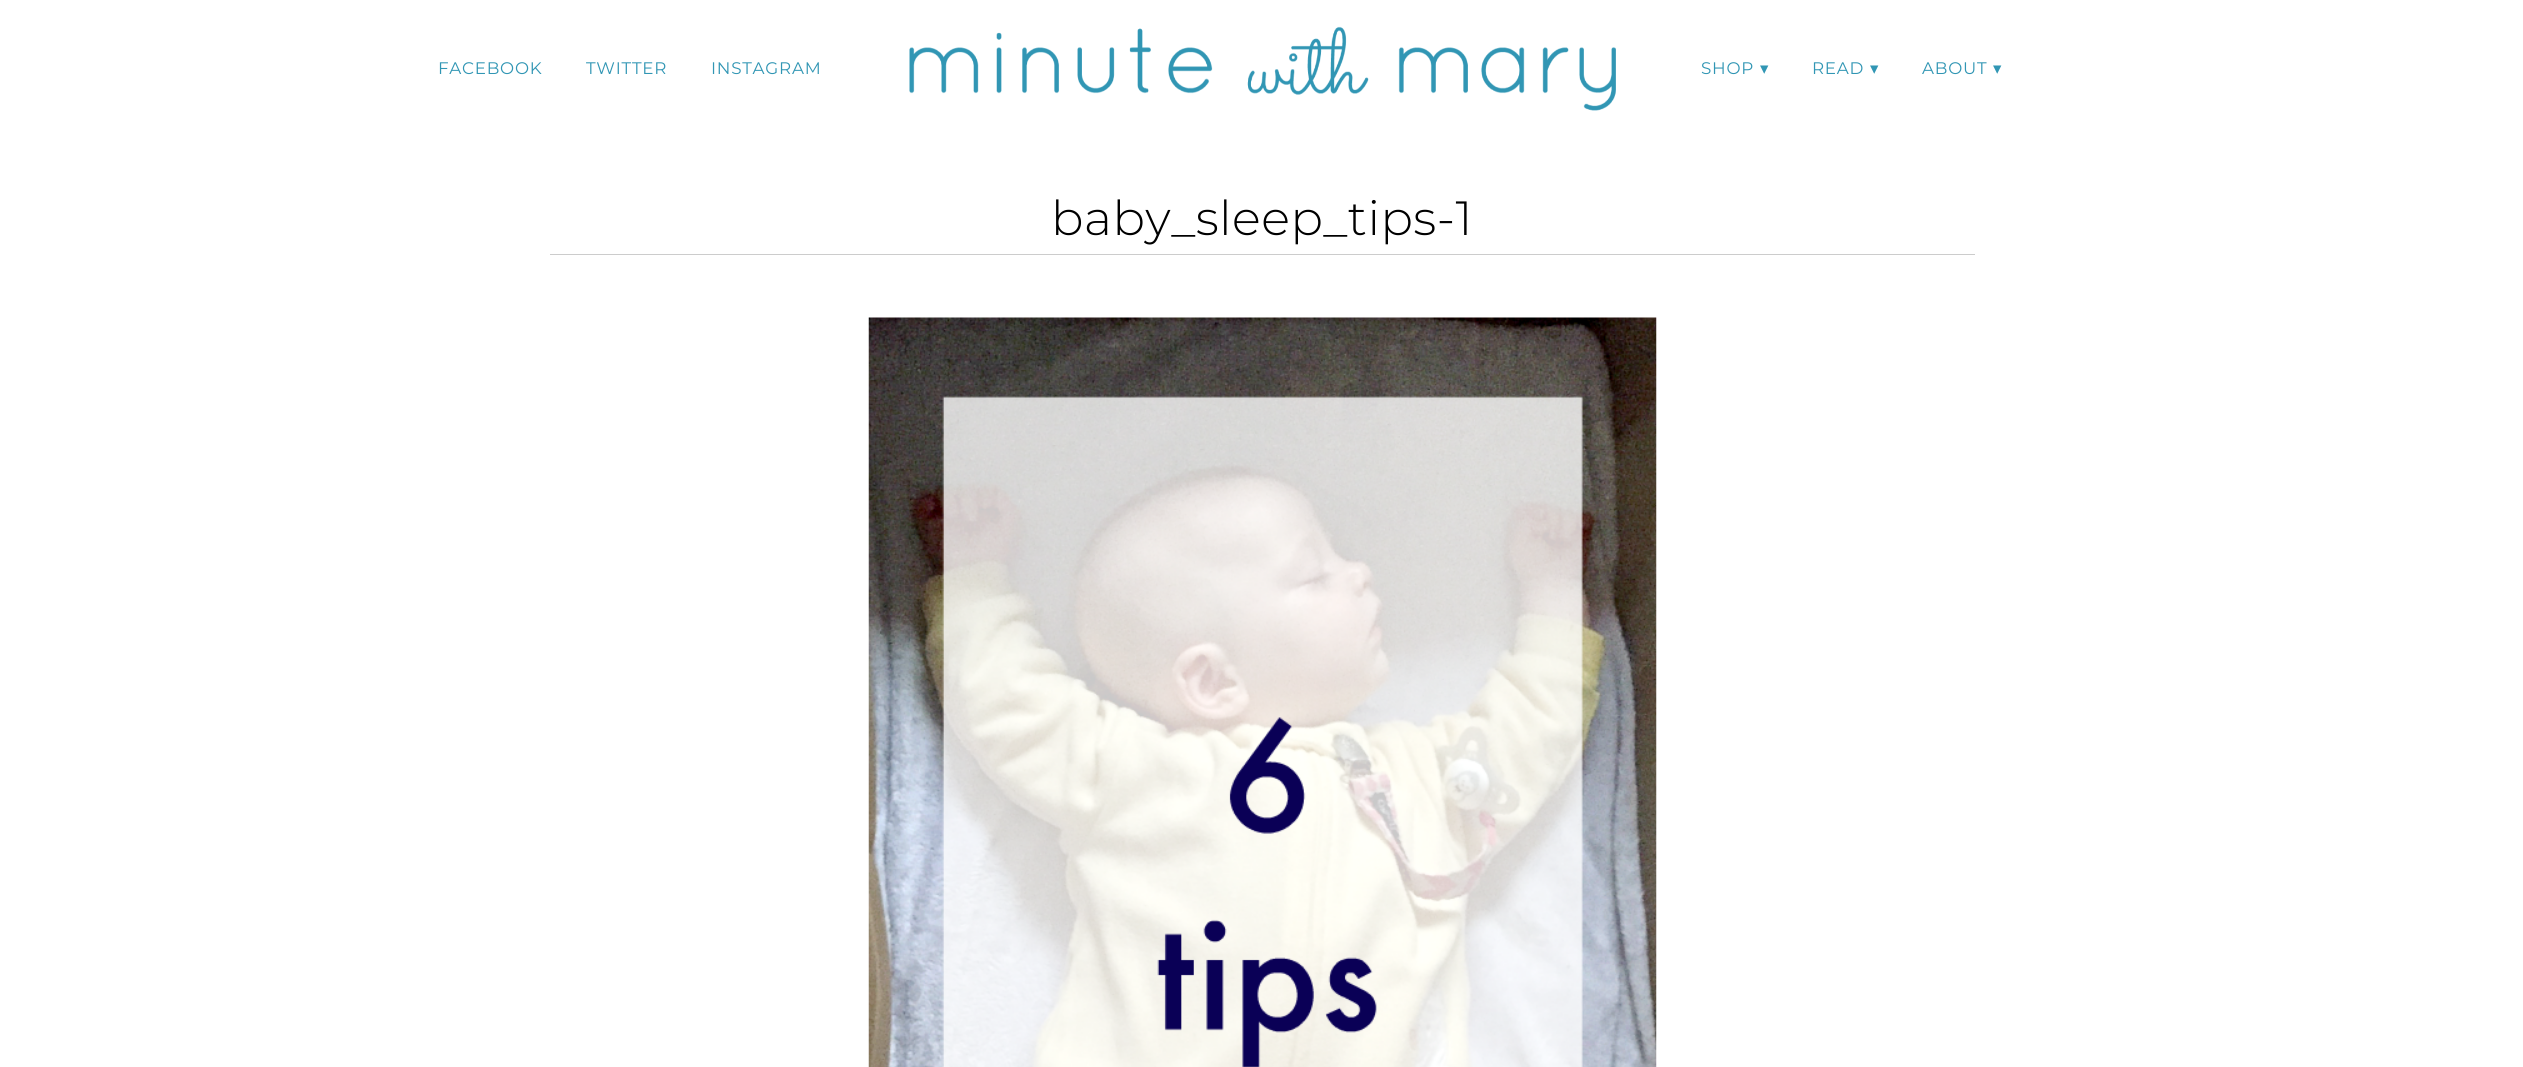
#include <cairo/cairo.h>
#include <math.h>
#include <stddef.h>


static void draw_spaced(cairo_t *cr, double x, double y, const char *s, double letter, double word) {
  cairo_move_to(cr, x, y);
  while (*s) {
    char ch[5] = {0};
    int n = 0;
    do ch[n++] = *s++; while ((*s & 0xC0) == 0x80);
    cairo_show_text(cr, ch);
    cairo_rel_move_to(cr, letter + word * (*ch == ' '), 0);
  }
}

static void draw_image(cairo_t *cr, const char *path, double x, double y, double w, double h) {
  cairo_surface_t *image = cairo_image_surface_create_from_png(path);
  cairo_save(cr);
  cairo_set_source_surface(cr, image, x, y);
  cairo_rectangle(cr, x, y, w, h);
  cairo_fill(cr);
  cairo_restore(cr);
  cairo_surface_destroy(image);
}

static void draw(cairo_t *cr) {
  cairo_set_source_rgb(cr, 1, 1, 1);
  cairo_paint(cr);
  draw_image(cr, "images/1.png", 909, 26, 707, 85);
  cairo_set_source_rgb(cr, 204 / 255.0, 204 / 255.0, 204 / 255.0);
  cairo_rectangle(cr, 550, 254, 1425, 1);
  cairo_fill(cr);
  draw_image(cr, "images/2.png", 868, 317, 789, 750);
  cairo_select_font_face(cr, "Montserrat", CAIRO_FONT_SLANT_NORMAL, CAIRO_FONT_WEIGHT_NORMAL);
  cairo_set_font_size(cr, 16.75);
  cairo_set_source_rgb(cr, 49 / 255.0, 150 / 255.0, 180 / 255.0);
  draw_spaced(cr, 438, 74, "FACEBOOK", 0.75, 0);
  draw_spaced(cr, 586, 74, "TWITTER", 0.75, 0);
  draw_spaced(cr, 711, 74, "INSTAGRAM", 0.75, 0);
  draw_spaced(cr, 1701, 74, "SHOP", 0.75, 0);
  cairo_select_font_face(cr, "DejaVu Sans", CAIRO_FONT_SLANT_NORMAL, CAIRO_FONT_WEIGHT_NORMAL);
  draw_spaced(cr, 1760, 74, "▾", 0.75, 0);
  cairo_select_font_face(cr, "Montserrat", CAIRO_FONT_SLANT_NORMAL, CAIRO_FONT_WEIGHT_NORMAL);
  draw_spaced(cr, 1812, 74, "READ", 0.75, 0);
  cairo_select_font_face(cr, "DejaVu Sans", CAIRO_FONT_SLANT_NORMAL, CAIRO_FONT_WEIGHT_NORMAL);
  draw_spaced(cr, 1870, 74, "▾", 0.75, 0);
  cairo_select_font_face(cr, "Montserrat", CAIRO_FONT_SLANT_NORMAL, CAIRO_FONT_WEIGHT_NORMAL);
  draw_spaced(cr, 1922, 74, "ABOUT", 0.75, 0);
  cairo_select_font_face(cr, "DejaVu Sans", CAIRO_FONT_SLANT_NORMAL, CAIRO_FONT_WEIGHT_NORMAL);
  draw_spaced(cr, 1993, 74, "▾", 0.75, 0);
  cairo_select_font_face(cr, "Montserrat Light", CAIRO_FONT_SLANT_NORMAL, CAIRO_FONT_WEIGHT_NORMAL);
  cairo_set_font_size(cr, 48);
  cairo_set_source_rgb(cr, 0, 0, 0);
  draw_spaced(cr, 1051, 235, "baby_sleep_tips-1", 0.5, 0);
}

int main(void) {
  cairo_surface_t *surface = cairo_image_surface_create(CAIRO_FORMAT_RGB24, 2523, 1067);
  cairo_t *cr = cairo_create(surface);
  cairo_font_options_t *options = cairo_font_options_create();
  cairo_font_options_set_hint_metrics(options, CAIRO_HINT_METRICS_OFF);
  cairo_font_options_set_hint_style(options, CAIRO_HINT_STYLE_NONE);
  cairo_set_font_options(cr, options);
  cairo_set_miter_limit(cr, 4);
  draw(cr);
  cairo_surface_write_to_png(surface, "out.png");
  cairo_font_options_destroy(options);
  cairo_destroy(cr);
  cairo_surface_destroy(surface);
  return 0;
}
